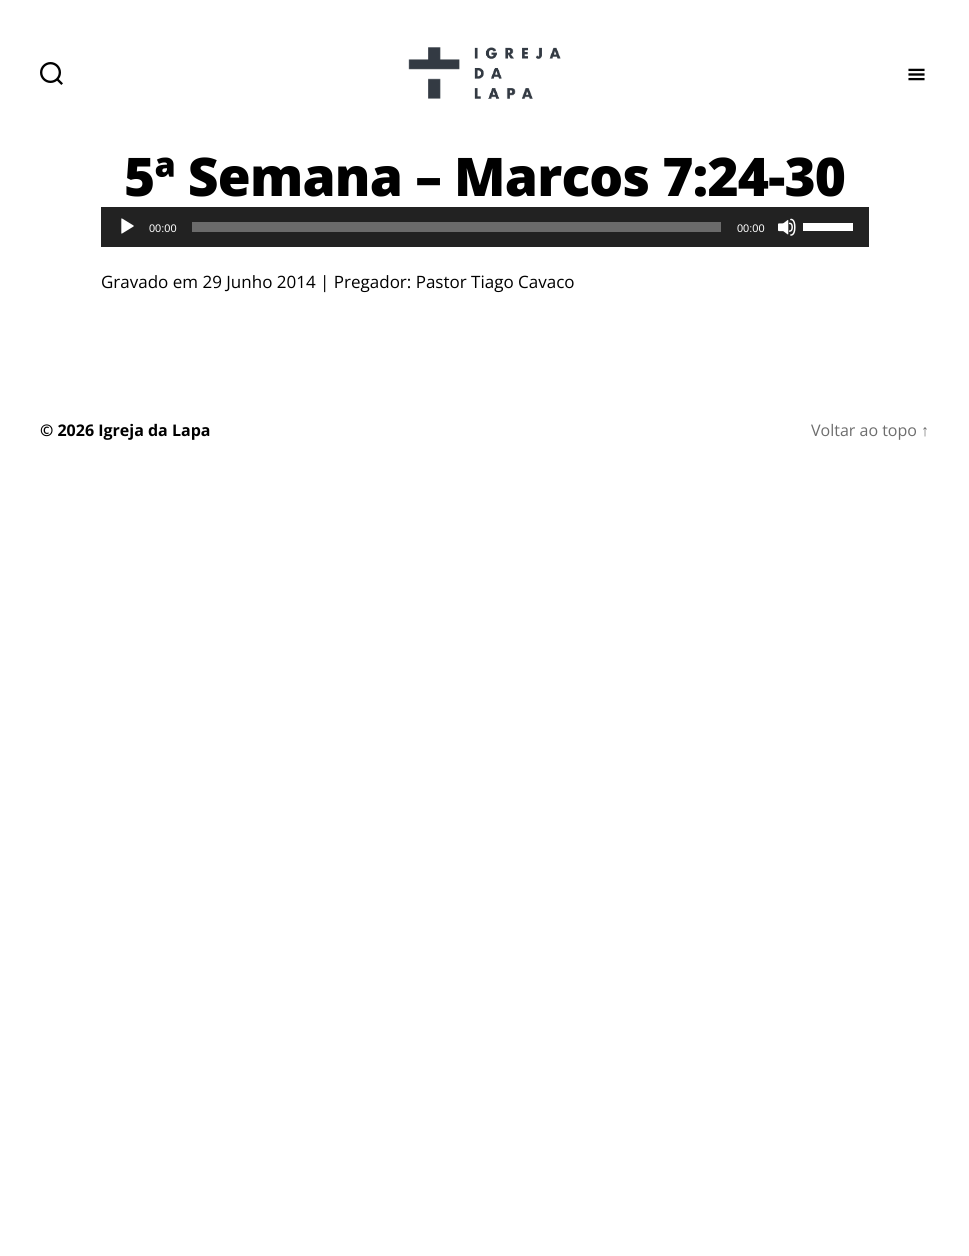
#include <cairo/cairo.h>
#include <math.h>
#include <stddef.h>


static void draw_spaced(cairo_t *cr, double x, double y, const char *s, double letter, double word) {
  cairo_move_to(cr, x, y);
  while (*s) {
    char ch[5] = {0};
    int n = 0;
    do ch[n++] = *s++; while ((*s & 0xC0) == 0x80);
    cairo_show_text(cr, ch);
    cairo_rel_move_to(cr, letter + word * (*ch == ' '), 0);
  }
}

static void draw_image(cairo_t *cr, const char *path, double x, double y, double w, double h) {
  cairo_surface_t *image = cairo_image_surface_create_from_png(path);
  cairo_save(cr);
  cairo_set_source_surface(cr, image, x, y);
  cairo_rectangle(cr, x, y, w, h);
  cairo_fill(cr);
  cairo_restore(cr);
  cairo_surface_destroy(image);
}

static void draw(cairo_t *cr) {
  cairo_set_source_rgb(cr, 1, 1, 1);
  cairo_paint(cr);
  draw_image(cr, "images/1.png", 40, 62, 23, 23);
  draw_image(cr, "images/2.png", 408, 47, 153, 52);
  draw_image(cr, "images/3.png", 908, 68, 17, 13);
  cairo_set_source_rgb(cr, 34 / 255.0, 34 / 255.0, 34 / 255.0);
  cairo_rectangle(cr, 101, 207, 768, 40);
  cairo_fill(cr);
  draw_image(cr, "images/4.png", 121, 218, 13, 16);
  cairo_set_source_rgb(cr, 107 / 255.0, 107 / 255.0, 107 / 255.0);
  cairo_rectangle(cr, 192, 222, 529, 10);
  cairo_fill(cr);
  draw_image(cr, "images/5.png", 778, 218, 18, 18);
  cairo_set_source_rgb(cr, 1, 1, 1);
  cairo_rectangle(cr, 803, 223, 50, 8);
  cairo_fill(cr);
  cairo_select_font_face(cr, "Open Sans ExtraBold", CAIRO_FONT_SLANT_NORMAL, CAIRO_FONT_WEIGHT_NORMAL);
  cairo_set_font_size(cr, 53.3);
  cairo_set_source_rgb(cr, 0, 0, 0);
  draw_spaced(cr, 124, 196, "5ª Semana – Marcos 7:24-30", -0.8, 0);
  cairo_select_font_face(cr, "Liberation Sans", CAIRO_FONT_SLANT_NORMAL, CAIRO_FONT_WEIGHT_NORMAL);
  cairo_set_font_size(cr, 11);
  cairo_set_source_rgb(cr, 1, 1, 1);
  cairo_move_to(cr, 149, 232);
  cairo_show_text(cr, "00:00");
  cairo_move_to(cr, 737, 232);
  cairo_show_text(cr, "00:00");
  cairo_select_font_face(cr, "Open Sans", CAIRO_FONT_SLANT_NORMAL, CAIRO_FONT_WEIGHT_NORMAL);
  cairo_set_font_size(cr, 17);
  cairo_set_source_rgb(cr, 0, 0, 0);
  cairo_move_to(cr, 101, 288);
  cairo_show_text(cr, "Gravado em 29 Junho 2014 | Pregador: Pastor Tiago Cavaco");
  cairo_select_font_face(cr, "Open Sans", CAIRO_FONT_SLANT_NORMAL, CAIRO_FONT_WEIGHT_BOLD);
  cairo_set_font_size(cr, 16);
  cairo_move_to(cr, 40, 436);
  cairo_show_text(cr, "© 2026 Igreja da Lapa");
  cairo_select_font_face(cr, "Open Sans", CAIRO_FONT_SLANT_NORMAL, CAIRO_FONT_WEIGHT_NORMAL);
  cairo_set_source_rgb(cr, 109 / 255.0, 109 / 255.0, 109 / 255.0);
  cairo_move_to(cr, 811, 436);
  cairo_show_text(cr, "Voltar ao topo");
  cairo_select_font_face(cr, "Liberation Serif", CAIRO_FONT_SLANT_NORMAL, CAIRO_FONT_WEIGHT_NORMAL);
  cairo_move_to(cr, 921, 436);
  cairo_show_text(cr, "↑");
}

int main(void) {
  cairo_surface_t *surface = cairo_image_surface_create(CAIRO_FORMAT_RGB24, 969, 1256);
  cairo_t *cr = cairo_create(surface);
  cairo_font_options_t *options = cairo_font_options_create();
  cairo_font_options_set_hint_metrics(options, CAIRO_HINT_METRICS_OFF);
  cairo_font_options_set_hint_style(options, CAIRO_HINT_STYLE_NONE);
  cairo_set_font_options(cr, options);
  cairo_set_miter_limit(cr, 4);
  draw(cr);
  cairo_surface_write_to_png(surface, "out.png");
  cairo_font_options_destroy(options);
  cairo_destroy(cr);
  cairo_surface_destroy(surface);
  return 0;
}
